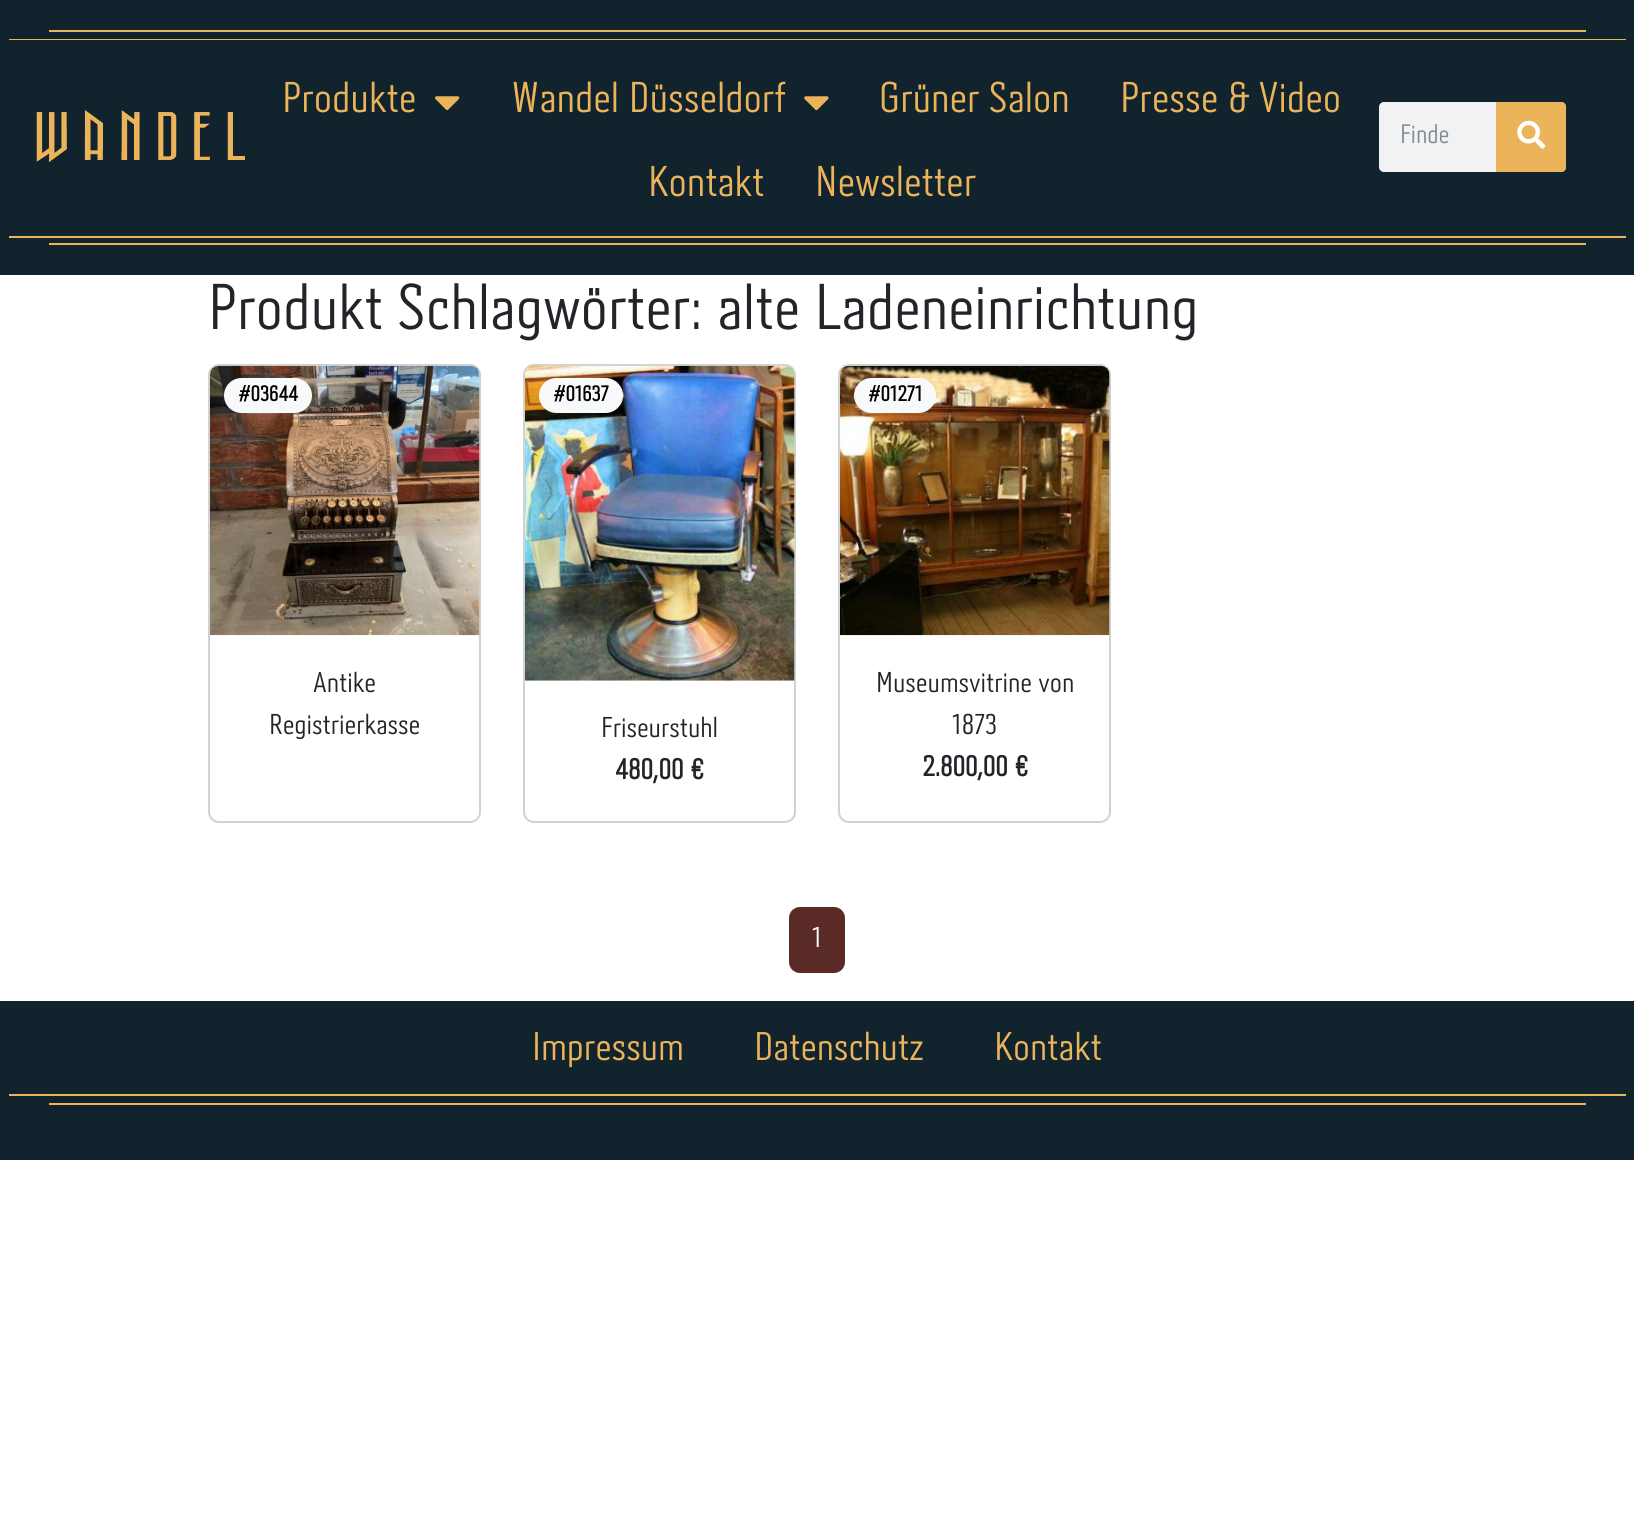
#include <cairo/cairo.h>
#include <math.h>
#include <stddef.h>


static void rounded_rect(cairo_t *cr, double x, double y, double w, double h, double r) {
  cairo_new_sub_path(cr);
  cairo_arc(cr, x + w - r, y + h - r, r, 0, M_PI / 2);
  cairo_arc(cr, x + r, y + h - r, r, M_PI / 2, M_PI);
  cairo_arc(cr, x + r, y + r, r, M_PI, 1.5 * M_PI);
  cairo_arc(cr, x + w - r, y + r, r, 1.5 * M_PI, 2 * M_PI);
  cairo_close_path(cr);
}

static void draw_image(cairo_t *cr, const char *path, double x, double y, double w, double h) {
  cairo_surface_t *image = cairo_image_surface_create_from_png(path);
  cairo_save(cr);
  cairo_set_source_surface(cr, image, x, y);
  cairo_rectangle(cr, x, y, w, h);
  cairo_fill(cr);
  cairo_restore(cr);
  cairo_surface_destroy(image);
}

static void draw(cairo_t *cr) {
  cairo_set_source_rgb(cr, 1, 1, 1);
  cairo_paint(cr);
  cairo_set_source_rgb(cr, 17 / 255.0, 35 / 255.0, 45 / 255.0);
  cairo_rectangle(cr, 0, 0, 1634, 40);
  cairo_fill(cr);
  cairo_set_source_rgb(cr, 235 / 255.0, 180 / 255.0, 90 / 255.0);
  cairo_rectangle(cr, 49, 30, 1537, 2);
  cairo_fill(cr);
  cairo_rectangle(cr, 9, 39, 1617, 1);
  cairo_fill(cr);
  cairo_set_source_rgb(cr, 17 / 255.0, 35 / 255.0, 45 / 255.0);
  cairo_rectangle(cr, 0, 40, 1634, 235);
  cairo_fill(cr);
  cairo_set_source_rgb(cr, 235 / 255.0, 180 / 255.0, 90 / 255.0);
  cairo_rectangle(cr, 9, 236, 1617, 2);
  cairo_fill(cr);
  cairo_rectangle(cr, 49, 243, 1537, 2);
  cairo_fill(cr);
  draw_image(cr, "images/1.png", 36, 110, 209, 52);
  draw_image(cr, "images/2.png", 435, 96, 25, 15);
  draw_image(cr, "images/3.png", 804, 96, 25, 15);
  cairo_set_source_rgb(cr, 241 / 255.0, 242 / 255.0, 243 / 255.0);
  rounded_rect(cr, 1379, 102, 187, 70, 5);
  cairo_fill(cr);
  cairo_set_source_rgb(cr, 235 / 255.0, 180 / 255.0, 90 / 255.0);
  cairo_new_path(cr);
  cairo_move_to(cr, 1496, 102);
  cairo_line_to(cr, 1561, 102);
  cairo_curve_to(cr, 1564, 102, 1566, 104, 1566, 107);
  cairo_line_to(cr, 1566, 167);
  cairo_curve_to(cr, 1566, 170, 1564, 172, 1561, 172);
  cairo_line_to(cr, 1496, 172);
  cairo_close_path(cr);
  cairo_fill(cr);
  draw_image(cr, "images/4.png", 1517, 120, 29, 29);
  rounded_rect(cr, 209, 365, 271, 457, 10);
  cairo_set_source_rgb(cr, 210 / 255.0, 210 / 255.0, 210 / 255.0);
  cairo_stroke(cr);
  draw_image(cr, "images/5.png", 210, 365, 270, 271);
  cairo_set_source_rgb(cr, 248 / 255.0, 249 / 255.0, 250 / 255.0);
  rounded_rect(cr, 224, 378, 88, 35, 17.5);
  cairo_fill(cr);
  rounded_rect(cr, 524, 365, 271, 457, 10);
  cairo_set_source_rgb(cr, 210 / 255.0, 210 / 255.0, 210 / 255.0);
  cairo_stroke(cr);
  draw_image(cr, "images/6.png", 525, 365, 270, 316);
  cairo_set_source_rgb(cr, 248 / 255.0, 249 / 255.0, 250 / 255.0);
  rounded_rect(cr, 539, 378, 84, 35, 17.5);
  cairo_fill(cr);
  rounded_rect(cr, 839, 365, 271, 457, 10);
  cairo_set_source_rgb(cr, 210 / 255.0, 210 / 255.0, 210 / 255.0);
  cairo_stroke(cr);
  draw_image(cr, "images/7.png", 840, 365, 270, 271);
  cairo_set_source_rgb(cr, 248 / 255.0, 249 / 255.0, 250 / 255.0);
  rounded_rect(cr, 854, 378, 82, 35, 17.5);
  cairo_fill(cr);
  cairo_set_source_rgb(cr, 90 / 255.0, 42 / 255.0, 39 / 255.0);
  rounded_rect(cr, 790, 908, 54, 64, 10);
  cairo_fill_preserve(cr);
  cairo_stroke(cr);
  cairo_set_source_rgb(cr, 17 / 255.0, 35 / 255.0, 45 / 255.0);
  cairo_rectangle(cr, 0, 1001, 1634, 159);
  cairo_fill(cr);
  cairo_set_source_rgb(cr, 235 / 255.0, 180 / 255.0, 90 / 255.0);
  cairo_rectangle(cr, 9, 1094, 1617, 2);
  cairo_fill(cr);
  cairo_rectangle(cr, 49, 1103, 1537, 2);
  cairo_fill(cr);
  cairo_select_font_face(cr, "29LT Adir", CAIRO_FONT_SLANT_NORMAL, CAIRO_FONT_WEIGHT_NORMAL);
  cairo_set_font_size(cr, 42);
  cairo_move_to(cr, 282, 112);
  cairo_show_text(cr, "Produkte");
  cairo_move_to(cr, 511, 112);
  cairo_show_text(cr, "Wandel Düsseldorf");
  cairo_move_to(cr, 879, 112);
  cairo_show_text(cr, "Grüner Salon");
  cairo_move_to(cr, 1120, 112);
  cairo_show_text(cr, "Presse & Video");
  cairo_move_to(cr, 648, 196);
  cairo_show_text(cr, "Kontakt");
  cairo_move_to(cr, 815, 196);
  cairo_show_text(cr, "Newsletter");
  cairo_set_font_size(cr, 26);
  cairo_set_source_rgb(cr, 134 / 255.0, 138 / 255.0, 142 / 255.0);
  cairo_move_to(cr, 1400, 143);
  cairo_show_text(cr, "Finde");
  cairo_set_font_size(cr, 63);
  cairo_set_source_rgb(cr, 33 / 255.0, 37 / 255.0, 41 / 255.0);
  cairo_move_to(cr, 208, 329);
  cairo_show_text(cr, "Produkt Schlagwörter: alte Ladeneinrichtung");
  cairo_select_font_face(cr, "29LT Adir", CAIRO_FONT_SLANT_NORMAL, CAIRO_FONT_WEIGHT_BOLD);
  cairo_set_font_size(cr, 21);
  cairo_set_source_rgb(cr, 0, 0, 0);
  cairo_move_to(cr, 238, 401);
  cairo_show_text(cr, "#03644");
  cairo_select_font_face(cr, "29LT Adir", CAIRO_FONT_SLANT_NORMAL, CAIRO_FONT_WEIGHT_NORMAL);
  cairo_set_font_size(cr, 28);
  cairo_set_source_rgb(cr, 33 / 255.0, 37 / 255.0, 41 / 255.0);
  cairo_move_to(cr, 313, 692);
  cairo_show_text(cr, "Antike");
  cairo_move_to(cr, 269, 734);
  cairo_show_text(cr, "Registrierkasse");
  cairo_select_font_face(cr, "29LT Adir", CAIRO_FONT_SLANT_NORMAL, CAIRO_FONT_WEIGHT_BOLD);
  cairo_set_font_size(cr, 21);
  cairo_set_source_rgb(cr, 0, 0, 0);
  cairo_move_to(cr, 553, 401);
  cairo_show_text(cr, "#01637");
  cairo_select_font_face(cr, "29LT Adir", CAIRO_FONT_SLANT_NORMAL, CAIRO_FONT_WEIGHT_NORMAL);
  cairo_set_font_size(cr, 28);
  cairo_set_source_rgb(cr, 33 / 255.0, 37 / 255.0, 41 / 255.0);
  cairo_move_to(cr, 601, 737);
  cairo_show_text(cr, "Friseurstuhl");
  cairo_select_font_face(cr, "29LT Adir", CAIRO_FONT_SLANT_NORMAL, CAIRO_FONT_WEIGHT_BOLD);
  cairo_move_to(cr, 615, 779);
  cairo_show_text(cr, "480,00 €");
  cairo_set_font_size(cr, 21);
  cairo_set_source_rgb(cr, 0, 0, 0);
  cairo_move_to(cr, 868, 401);
  cairo_show_text(cr, "#01271");
  cairo_select_font_face(cr, "29LT Adir", CAIRO_FONT_SLANT_NORMAL, CAIRO_FONT_WEIGHT_NORMAL);
  cairo_set_font_size(cr, 28);
  cairo_set_source_rgb(cr, 33 / 255.0, 37 / 255.0, 41 / 255.0);
  cairo_move_to(cr, 876, 692);
  cairo_show_text(cr, "Museumsvitrine von");
  cairo_move_to(cr, 952, 734);
  cairo_show_text(cr, "1873");
  cairo_select_font_face(cr, "29LT Adir", CAIRO_FONT_SLANT_NORMAL, CAIRO_FONT_WEIGHT_BOLD);
  cairo_move_to(cr, 922, 776);
  cairo_show_text(cr, "2.800,00 €");
  cairo_select_font_face(cr, "29LT Adir", CAIRO_FONT_SLANT_NORMAL, CAIRO_FONT_WEIGHT_NORMAL);
  cairo_set_source_rgb(cr, 1, 1, 1);
  cairo_move_to(cr, 812, 947);
  cairo_show_text(cr, "1");
  cairo_set_font_size(cr, 39);
  cairo_set_source_rgb(cr, 235 / 255.0, 180 / 255.0, 90 / 255.0);
  cairo_move_to(cr, 532, 1060);
  cairo_show_text(cr, "Impressum");
  cairo_move_to(cr, 754, 1060);
  cairo_show_text(cr, "Datenschutz");
  cairo_move_to(cr, 994, 1060);
  cairo_show_text(cr, "Kontakt");
}

int main(void) {
  cairo_surface_t *surface = cairo_image_surface_create(CAIRO_FORMAT_RGB24, 1634, 1531);
  cairo_t *cr = cairo_create(surface);
  cairo_font_options_t *options = cairo_font_options_create();
  cairo_font_options_set_hint_metrics(options, CAIRO_HINT_METRICS_OFF);
  cairo_font_options_set_hint_style(options, CAIRO_HINT_STYLE_NONE);
  cairo_set_font_options(cr, options);
  cairo_set_miter_limit(cr, 4);
  draw(cr);
  cairo_surface_write_to_png(surface, "out.png");
  cairo_font_options_destroy(options);
  cairo_destroy(cr);
  cairo_surface_destroy(surface);
  return 0;
}
